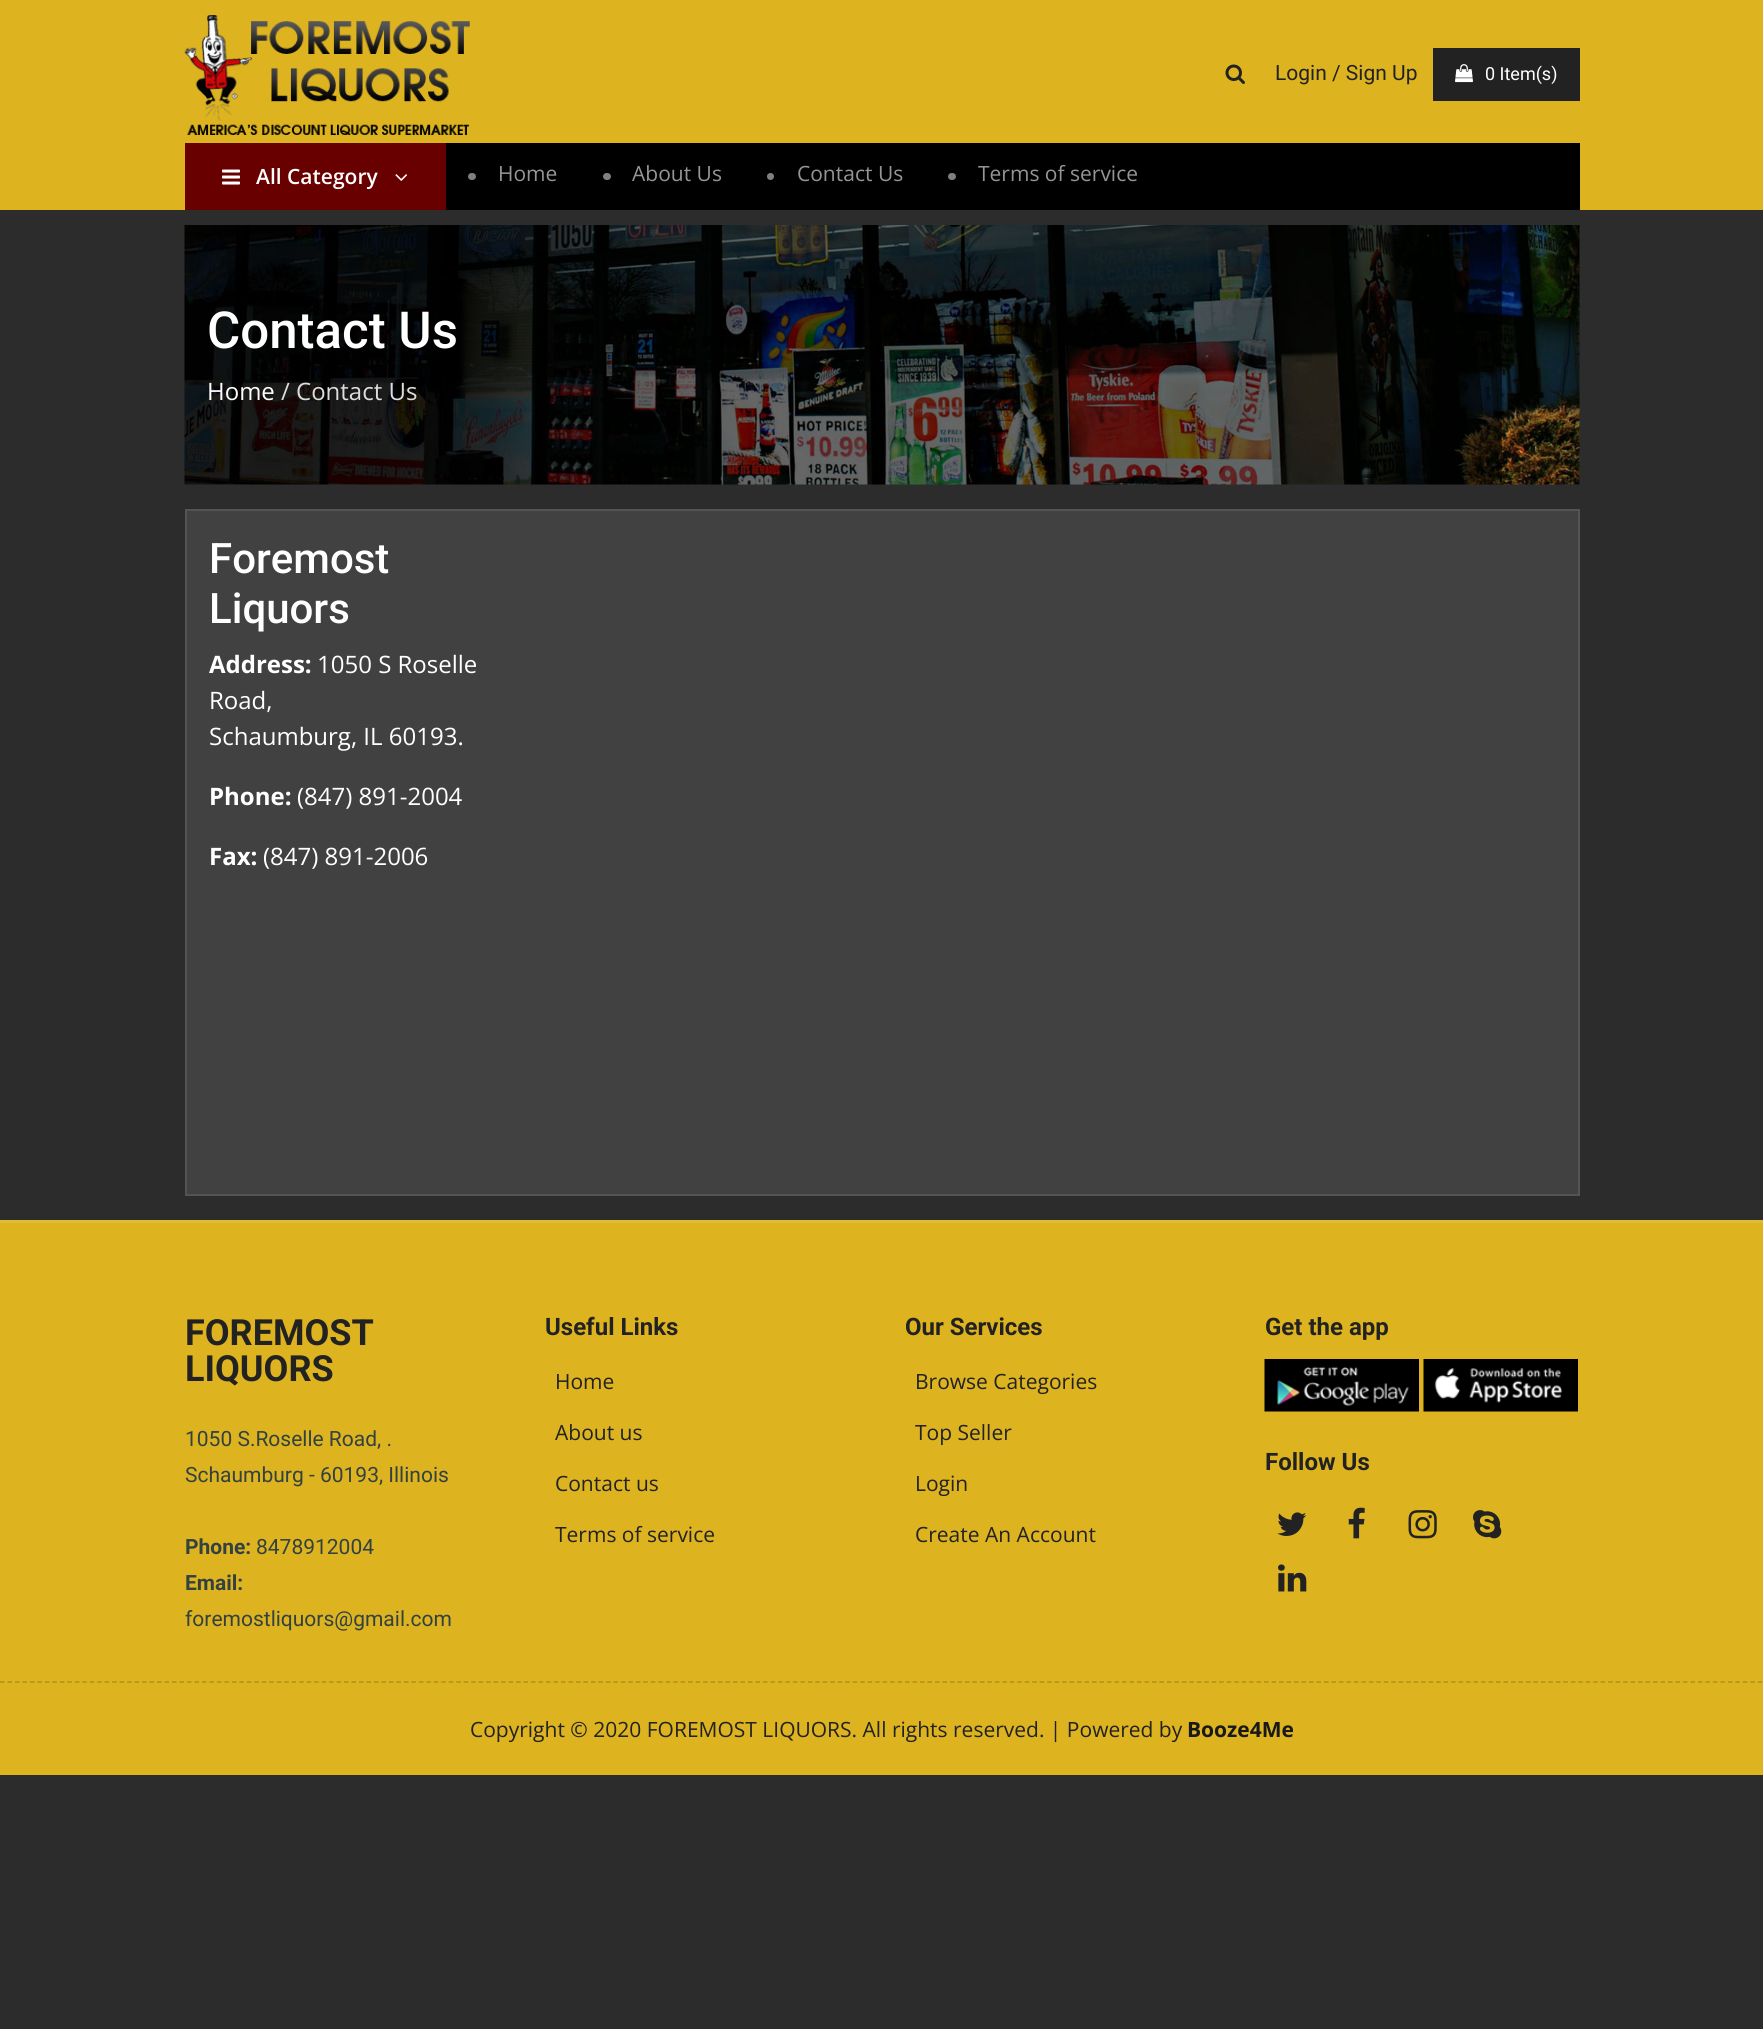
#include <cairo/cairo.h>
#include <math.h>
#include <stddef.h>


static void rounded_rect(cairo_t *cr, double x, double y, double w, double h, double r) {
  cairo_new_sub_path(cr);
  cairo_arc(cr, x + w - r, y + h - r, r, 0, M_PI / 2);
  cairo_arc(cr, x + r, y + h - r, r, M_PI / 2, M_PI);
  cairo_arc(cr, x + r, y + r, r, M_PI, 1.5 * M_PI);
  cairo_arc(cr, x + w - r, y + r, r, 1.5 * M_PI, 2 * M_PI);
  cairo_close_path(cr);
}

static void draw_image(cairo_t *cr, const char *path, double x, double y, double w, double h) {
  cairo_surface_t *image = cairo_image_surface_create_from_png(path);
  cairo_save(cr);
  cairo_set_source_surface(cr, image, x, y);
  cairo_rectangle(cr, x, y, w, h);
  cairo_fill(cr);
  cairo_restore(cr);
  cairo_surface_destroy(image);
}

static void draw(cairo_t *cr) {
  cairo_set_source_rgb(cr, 44 / 255.0, 44 / 255.0, 44 / 255.0);
  cairo_paint(cr);
  cairo_set_source_rgb(cr, 221 / 255.0, 179 / 255.0, 31 / 255.0);
  cairo_rectangle(cr, 0, 0, 1763, 210);
  cairo_fill(cr);
  draw_image(cr, "images/1.png", 184, 15, 286, 120);
  draw_image(cr, "images/2.png", 1225, 64, 20, 20);
  cairo_set_source_rgb(cr, 34 / 255.0, 34 / 255.0, 34 / 255.0);
  cairo_rectangle(cr, 1433, 48, 147, 53);
  cairo_fill(cr);
  draw_image(cr, "images/3.png", 1455, 64, 18, 19);
  cairo_set_source_rgb(cr, 0, 0, 0);
  cairo_rectangle(cr, 446, 143, 1134, 67);
  cairo_fill(cr);
  cairo_set_source_rgb(cr, 104 / 255.0, 0, 0);
  cairo_rectangle(cr, 185, 143, 261, 67);
  cairo_fill(cr);
  draw_image(cr, "images/4.png", 222, 169, 18, 16);
  draw_image(cr, "images/5.png", 395, 174, 12, 7);
  cairo_set_source_rgb(cr, 128 / 255.0, 128 / 255.0, 128 / 255.0);
  rounded_rect(cr, 468, 173, 8, 7, 3.5);
  cairo_fill(cr);
  rounded_rect(cr, 603, 173, 8, 7, 3.5);
  cairo_fill(cr);
  cairo_arc(cr, 770.5, 176.5, 3.5, 0, 2 * M_PI);
  cairo_fill(cr);
  rounded_rect(cr, 948, 173, 8, 7, 3.5);
  cairo_fill(cr);
  draw_image(cr, "images/6.png", 184, 225, 1396, 260);
  cairo_set_source_rgb(cr, 65 / 255.0, 65 / 255.0, 65 / 255.0);
  cairo_rectangle(cr, 186, 510, 1393, 685);
  cairo_fill_preserve(cr);
  cairo_set_source_rgb(cr, 84 / 255.0, 84 / 255.0, 84 / 255.0);
  cairo_stroke(cr);
  cairo_set_source_rgb(cr, 221 / 255.0, 179 / 255.0, 31 / 255.0);
  cairo_rectangle(cr, 0, 1223, 1763, 552);
  cairo_fill(cr);
  cairo_set_source_rgb(cr, 224 / 255.0, 187 / 255.0, 53 / 255.0);
  cairo_rectangle(cr, 0, 1220, 1763, 3);
  cairo_fill(cr);
  draw_image(cr, "images/7.png", 1264, 1359, 155, 53);
  draw_image(cr, "images/8.png", 1423, 1359, 155, 53);
  draw_image(cr, "images/9.png", 1277, 1512, 30, 24);
  draw_image(cr, "images/10.png", 1348, 1507, 17, 32);
  draw_image(cr, "images/11.png", 1408, 1510, 29, 29);
  draw_image(cr, "images/12.png", 1473, 1510, 29, 29);
  draw_image(cr, "images/13.png", 1278, 1564, 29, 28);
  cairo_new_path(cr);
  cairo_move_to(cr, 0, 1682);
  cairo_line_to(cr, 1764, 1682);
  cairo_set_source_rgb(cr, 177 / 255.0, 143 / 255.0, 25 / 255.0);
  cairo_set_line_width(cr, 1.5);
  cairo_set_dash(cr, (double[]){4.5, 2.98}, 2, 0);
  cairo_stroke(cr);
  cairo_select_font_face(cr, "Roboto", CAIRO_FONT_SLANT_NORMAL, CAIRO_FONT_WEIGHT_NORMAL);
  cairo_set_font_size(cr, 21);
  cairo_set_source_rgb(cr, 34 / 255.0, 34 / 255.0, 34 / 255.0);
  cairo_move_to(cr, 1275, 80);
  cairo_show_text(cr, "Login / Sign Up");
  cairo_set_font_size(cr, 18);
  cairo_set_source_rgb(cr, 1, 1, 1);
  cairo_move_to(cr, 1485, 80);
  cairo_show_text(cr, "0 Item(s)");
  cairo_select_font_face(cr, "Open Sans SemiBold", CAIRO_FONT_SLANT_NORMAL, CAIRO_FONT_WEIGHT_NORMAL);
  cairo_set_font_size(cr, 21);
  cairo_move_to(cr, 256, 184);
  cairo_show_text(cr, "All Category");
  cairo_select_font_face(cr, "Open Sans", CAIRO_FONT_SLANT_NORMAL, CAIRO_FONT_WEIGHT_NORMAL);
  cairo_set_source_rgb(cr, 149 / 255.0, 149 / 255.0, 149 / 255.0);
  cairo_move_to(cr, 498, 181);
  cairo_show_text(cr, "Home");
  cairo_move_to(cr, 632, 181);
  cairo_show_text(cr, "About Us");
  cairo_move_to(cr, 797, 181);
  cairo_show_text(cr, "Contact Us");
  cairo_move_to(cr, 978, 181);
  cairo_show_text(cr, "Terms of service");
  cairo_select_font_face(cr, "Roboto Medium", CAIRO_FONT_SLANT_NORMAL, CAIRO_FONT_WEIGHT_NORMAL);
  cairo_set_font_size(cr, 51);
  cairo_set_source_rgb(cr, 1, 1, 1);
  cairo_move_to(cr, 207, 348);
  cairo_show_text(cr, "Contact Us");
  cairo_select_font_face(cr, "Open Sans", CAIRO_FONT_SLANT_NORMAL, CAIRO_FONT_WEIGHT_NORMAL);
  cairo_set_font_size(cr, 24);
  cairo_move_to(cr, 207, 400);
  cairo_show_text(cr, "Home");
  cairo_set_source_rgb(cr, 221 / 255.0, 221 / 255.0, 221 / 255.0);
  cairo_move_to(cr, 281, 400);
  cairo_show_text(cr, "/ Contact Us");
  cairo_select_font_face(cr, "Roboto Medium", CAIRO_FONT_SLANT_NORMAL, CAIRO_FONT_WEIGHT_NORMAL);
  cairo_set_font_size(cr, 42);
  cairo_set_source_rgb(cr, 1, 1, 1);
  cairo_move_to(cr, 209, 573);
  cairo_show_text(cr, "Foremost");
  cairo_move_to(cr, 209, 623);
  cairo_show_text(cr, "Liquors");
  cairo_select_font_face(cr, "Open Sans", CAIRO_FONT_SLANT_NORMAL, CAIRO_FONT_WEIGHT_BOLD);
  cairo_set_font_size(cr, 24);
  cairo_move_to(cr, 209, 673);
  cairo_show_text(cr, "Address:");
  cairo_select_font_face(cr, "Open Sans", CAIRO_FONT_SLANT_NORMAL, CAIRO_FONT_WEIGHT_NORMAL);
  cairo_move_to(cr, 317, 673);
  cairo_show_text(cr, "1050 S Roselle");
  cairo_move_to(cr, 209, 709);
  cairo_show_text(cr, "Road,");
  cairo_move_to(cr, 209, 745);
  cairo_show_text(cr, "Schaumburg, IL 60193.");
  cairo_select_font_face(cr, "Open Sans", CAIRO_FONT_SLANT_NORMAL, CAIRO_FONT_WEIGHT_BOLD);
  cairo_move_to(cr, 209, 805);
  cairo_show_text(cr, "Phone:");
  cairo_select_font_face(cr, "Open Sans", CAIRO_FONT_SLANT_NORMAL, CAIRO_FONT_WEIGHT_NORMAL);
  cairo_move_to(cr, 297, 805);
  cairo_show_text(cr, "(847) 891-2004");
  cairo_select_font_face(cr, "Open Sans", CAIRO_FONT_SLANT_NORMAL, CAIRO_FONT_WEIGHT_BOLD);
  cairo_move_to(cr, 209, 865);
  cairo_show_text(cr, "Fax:");
  cairo_select_font_face(cr, "Open Sans", CAIRO_FONT_SLANT_NORMAL, CAIRO_FONT_WEIGHT_NORMAL);
  cairo_move_to(cr, 263, 865);
  cairo_show_text(cr, "(847) 891-2006");
  cairo_select_font_face(cr, "Roboto", CAIRO_FONT_SLANT_NORMAL, CAIRO_FONT_WEIGHT_BOLD);
  cairo_set_font_size(cr, 36);
  cairo_set_source_rgb(cr, 34 / 255.0, 34 / 255.0, 34 / 255.0);
  cairo_move_to(cr, 185, 1345);
  cairo_show_text(cr, "FOREMOST");
  cairo_move_to(cr, 185, 1381);
  cairo_show_text(cr, "LIQUORS");
  cairo_select_font_face(cr, "Roboto", CAIRO_FONT_SLANT_NORMAL, CAIRO_FONT_WEIGHT_NORMAL);
  cairo_set_font_size(cr, 21);
  cairo_set_source_rgb(cr, 51 / 255.0, 66 / 255.0, 64 / 255.0);
  cairo_move_to(cr, 185, 1446);
  cairo_show_text(cr, "1050 S.Roselle Road, .");
  cairo_move_to(cr, 185, 1482);
  cairo_show_text(cr, "Schaumburg - 60193, Illinois");
  cairo_select_font_face(cr, "Roboto", CAIRO_FONT_SLANT_NORMAL, CAIRO_FONT_WEIGHT_BOLD);
  cairo_move_to(cr, 185, 1554);
  cairo_show_text(cr, "Phone:");
  cairo_select_font_face(cr, "Roboto", CAIRO_FONT_SLANT_NORMAL, CAIRO_FONT_WEIGHT_NORMAL);
  cairo_move_to(cr, 256, 1554);
  cairo_show_text(cr, "8478912004");
  cairo_select_font_face(cr, "Roboto", CAIRO_FONT_SLANT_NORMAL, CAIRO_FONT_WEIGHT_BOLD);
  cairo_move_to(cr, 185, 1590);
  cairo_show_text(cr, "Email:");
  cairo_select_font_face(cr, "Roboto", CAIRO_FONT_SLANT_NORMAL, CAIRO_FONT_WEIGHT_NORMAL);
  cairo_move_to(cr, 185, 1626);
  cairo_show_text(cr, "foremostliquors@gmail.com");
  cairo_select_font_face(cr, "Roboto", CAIRO_FONT_SLANT_NORMAL, CAIRO_FONT_WEIGHT_BOLD);
  cairo_set_font_size(cr, 24);
  cairo_set_source_rgb(cr, 34 / 255.0, 34 / 255.0, 34 / 255.0);
  cairo_move_to(cr, 545, 1335);
  cairo_show_text(cr, "Useful Links");
  cairo_select_font_face(cr, "Open Sans", CAIRO_FONT_SLANT_NORMAL, CAIRO_FONT_WEIGHT_NORMAL);
  cairo_set_font_size(cr, 21);
  cairo_move_to(cr, 555, 1389);
  cairo_show_text(cr, "Home");
  cairo_move_to(cr, 555, 1440);
  cairo_show_text(cr, "About us");
  cairo_move_to(cr, 555, 1491);
  cairo_show_text(cr, "Contact us");
  cairo_move_to(cr, 555, 1542);
  cairo_show_text(cr, "Terms of service");
  cairo_select_font_face(cr, "Roboto", CAIRO_FONT_SLANT_NORMAL, CAIRO_FONT_WEIGHT_BOLD);
  cairo_set_font_size(cr, 24);
  cairo_move_to(cr, 905, 1335);
  cairo_show_text(cr, "Our Services");
  cairo_select_font_face(cr, "Open Sans", CAIRO_FONT_SLANT_NORMAL, CAIRO_FONT_WEIGHT_NORMAL);
  cairo_set_font_size(cr, 21);
  cairo_move_to(cr, 915, 1389);
  cairo_show_text(cr, "Browse Categories");
  cairo_move_to(cr, 915, 1440);
  cairo_show_text(cr, "Top Seller");
  cairo_move_to(cr, 915, 1491);
  cairo_show_text(cr, "Login");
  cairo_move_to(cr, 915, 1542);
  cairo_show_text(cr, "Create An Account");
  cairo_select_font_face(cr, "Roboto", CAIRO_FONT_SLANT_NORMAL, CAIRO_FONT_WEIGHT_BOLD);
  cairo_set_font_size(cr, 24);
  cairo_move_to(cr, 1265, 1335);
  cairo_show_text(cr, "Get the app");
  cairo_move_to(cr, 1265, 1470);
  cairo_show_text(cr, "Follow Us");
  cairo_select_font_face(cr, "Open Sans", CAIRO_FONT_SLANT_NORMAL, CAIRO_FONT_WEIGHT_NORMAL);
  cairo_set_font_size(cr, 21);
  cairo_move_to(cr, 470, 1737);
  cairo_show_text(cr, "Copyright © 2020 FOREMOST LIQUORS. All rights reserved. | Powered by");
  cairo_select_font_face(cr, "Open Sans", CAIRO_FONT_SLANT_NORMAL, CAIRO_FONT_WEIGHT_BOLD);
  cairo_set_source_rgb(cr, 25 / 255.0, 25 / 255.0, 25 / 255.0);
  cairo_move_to(cr, 1187, 1737);
  cairo_show_text(cr, "Booze4Me");
}

int main(void) {
  cairo_surface_t *surface = cairo_image_surface_create(CAIRO_FORMAT_RGB24, 1763, 2029);
  cairo_t *cr = cairo_create(surface);
  cairo_font_options_t *options = cairo_font_options_create();
  cairo_font_options_set_hint_metrics(options, CAIRO_HINT_METRICS_OFF);
  cairo_font_options_set_hint_style(options, CAIRO_HINT_STYLE_NONE);
  cairo_set_font_options(cr, options);
  cairo_set_miter_limit(cr, 4);
  draw(cr);
  cairo_surface_write_to_png(surface, "out.png");
  cairo_font_options_destroy(options);
  cairo_destroy(cr);
  cairo_surface_destroy(surface);
  return 0;
}
